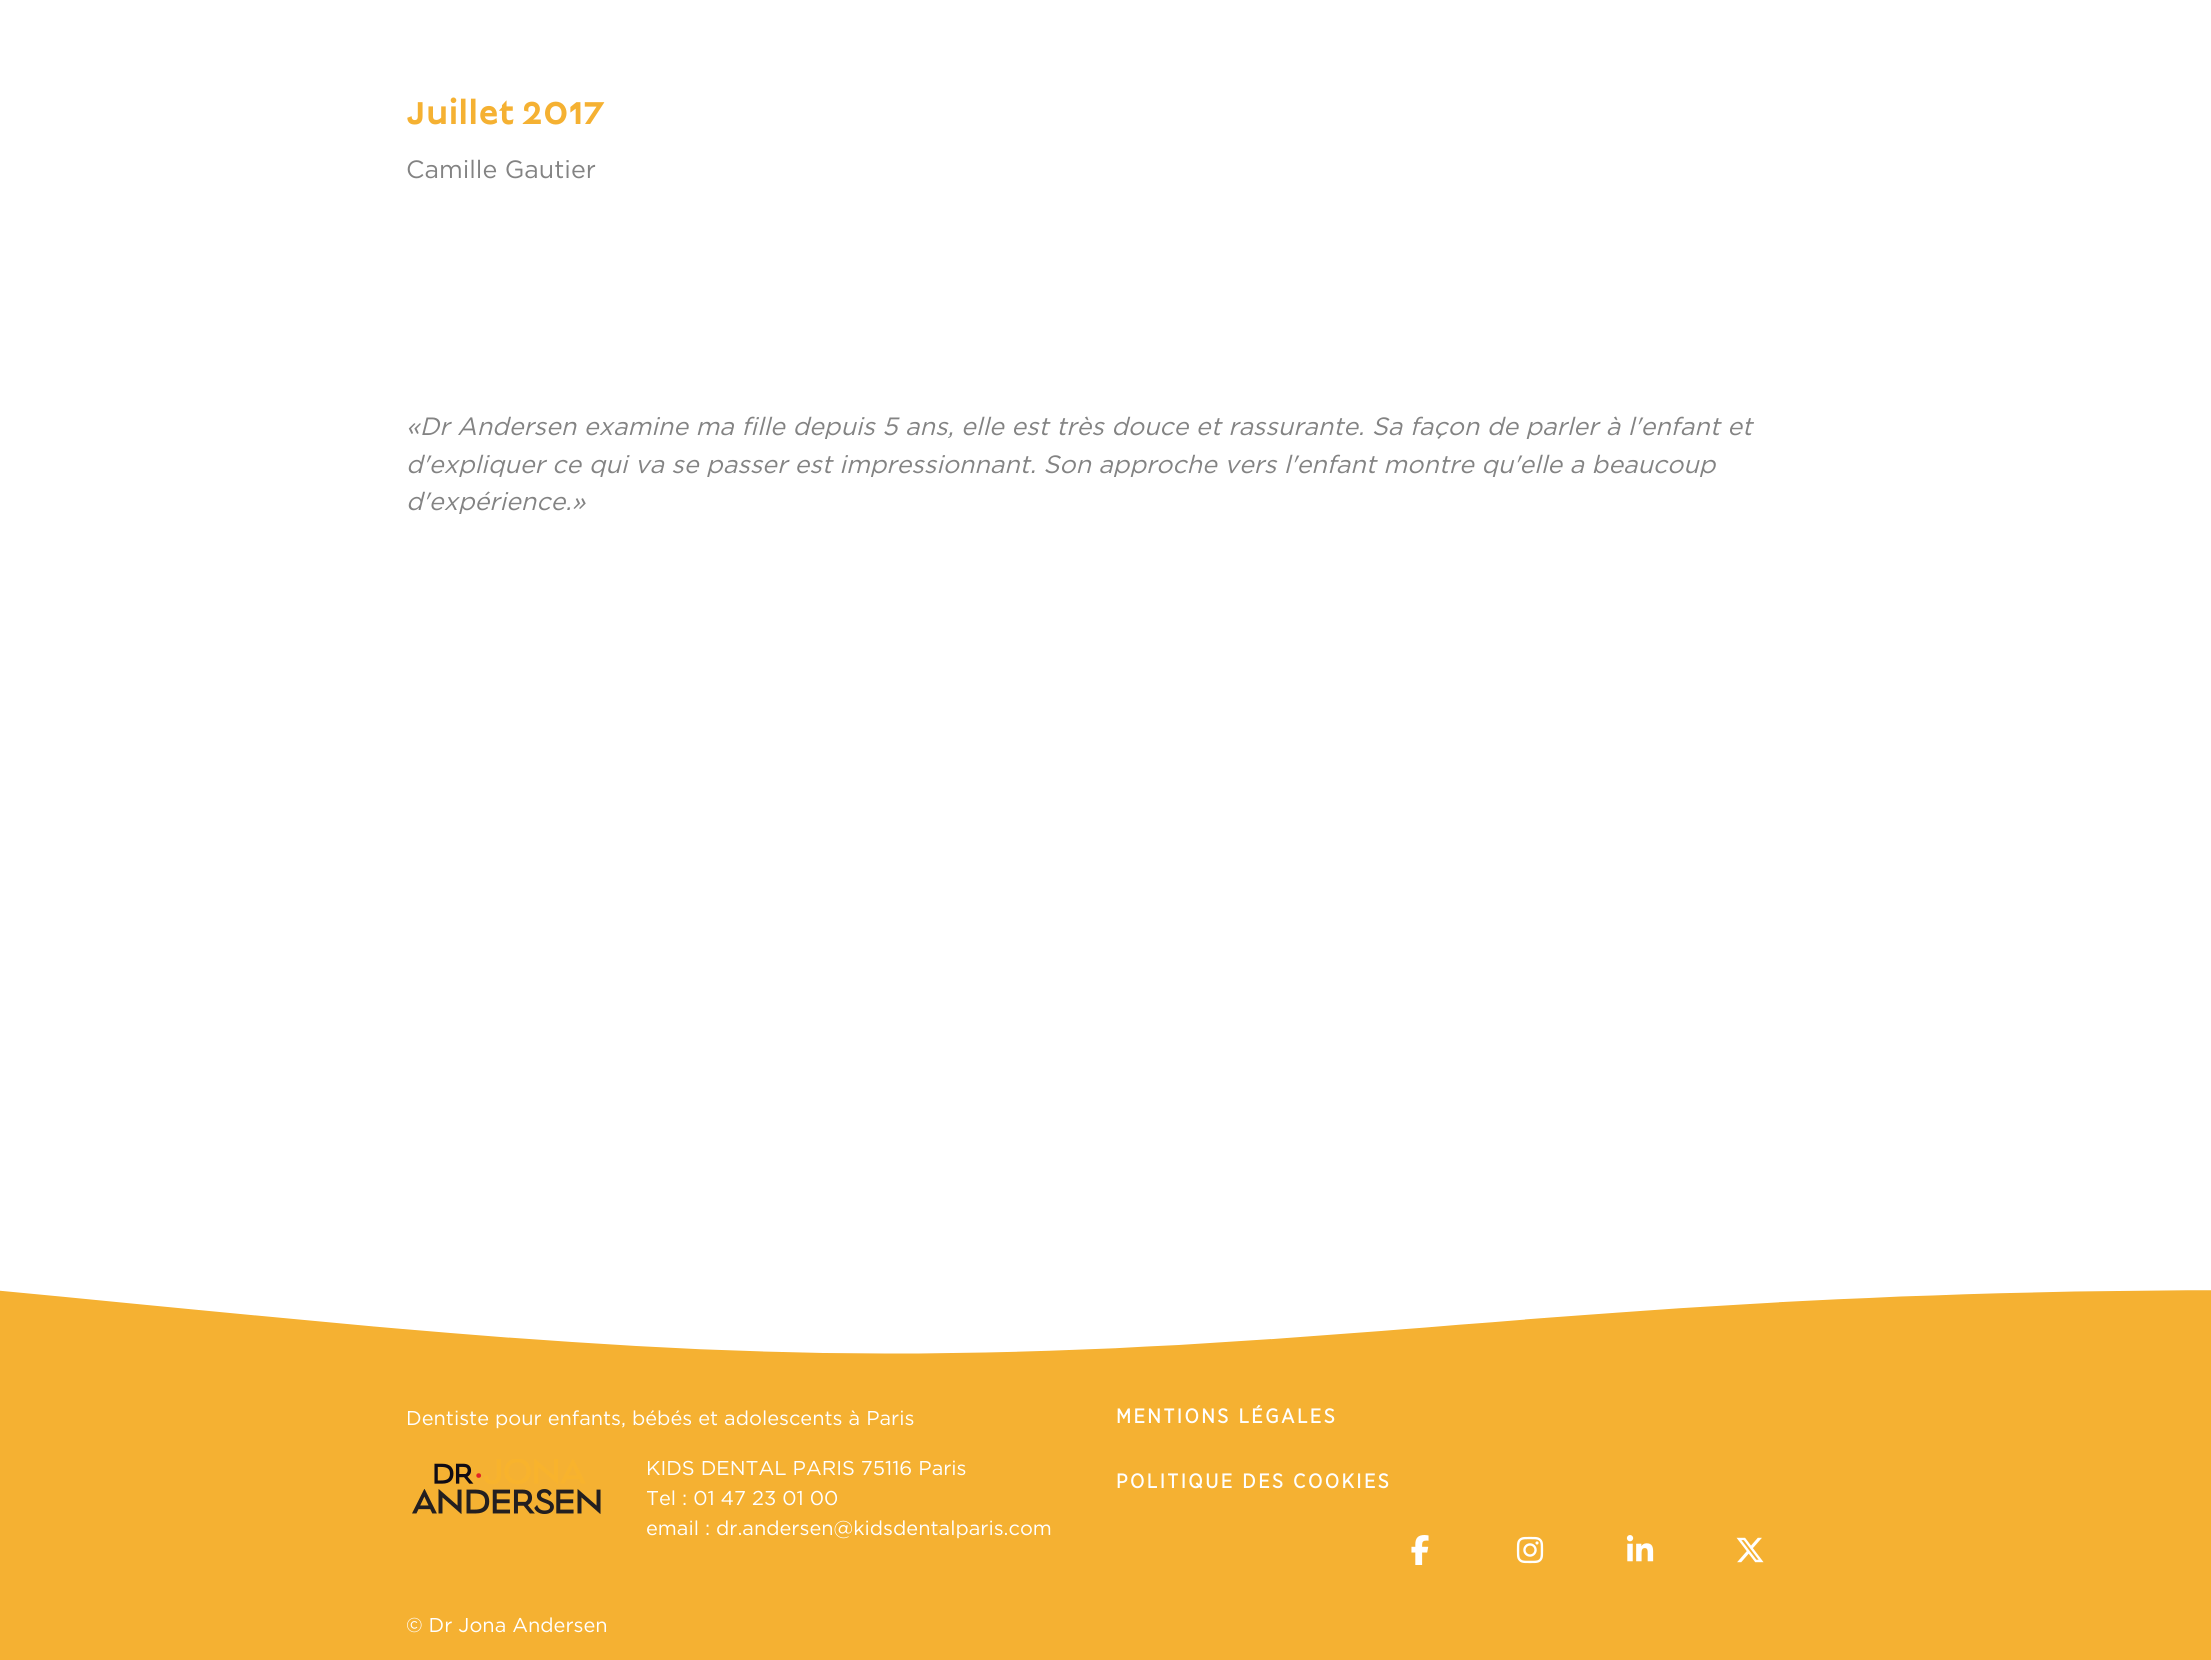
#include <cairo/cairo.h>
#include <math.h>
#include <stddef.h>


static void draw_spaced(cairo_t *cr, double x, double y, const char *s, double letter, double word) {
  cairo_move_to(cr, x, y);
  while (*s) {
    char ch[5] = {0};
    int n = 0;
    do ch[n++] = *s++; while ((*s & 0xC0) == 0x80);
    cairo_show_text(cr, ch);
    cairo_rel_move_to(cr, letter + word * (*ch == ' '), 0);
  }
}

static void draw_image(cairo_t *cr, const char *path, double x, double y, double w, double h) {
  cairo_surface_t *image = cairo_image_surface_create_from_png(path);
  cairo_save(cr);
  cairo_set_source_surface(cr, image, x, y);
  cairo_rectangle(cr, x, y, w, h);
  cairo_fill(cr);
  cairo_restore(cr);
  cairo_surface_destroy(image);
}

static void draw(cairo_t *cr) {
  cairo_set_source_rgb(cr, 1, 1, 1);
  cairo_paint(cr);
  cairo_set_source_rgb(cr, 245 / 255.0, 177 / 255.0, 50 / 255.0);
  cairo_rectangle(cr, 0, 1364, 2211, 296);
  cairo_fill(cr);
  draw_image(cr, "images/1.png", 0, 1290, 2211, 74);
  draw_image(cr, "images/2.png", 412, 1459, 189, 55);
  draw_image(cr, "images/3.png", 1411, 1535, 18, 30);
  draw_image(cr, "images/4.png", 1516, 1536, 28, 28);
  draw_image(cr, "images/5.png", 1626, 1535, 28, 27);
  draw_image(cr, "images/6.png", 1736, 1537, 28, 26);
  cairo_select_font_face(cr, "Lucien", CAIRO_FONT_SLANT_NORMAL, CAIRO_FONT_WEIGHT_BOLD);
  cairo_set_font_size(cr, 35);
  cairo_move_to(cr, 406, 124);
  cairo_show_text(cr, "Juillet 2017");
  cairo_select_font_face(cr, "Gotham", CAIRO_FONT_SLANT_NORMAL, CAIRO_FONT_WEIGHT_NORMAL);
  cairo_set_font_size(cr, 25);
  cairo_set_source_rgb(cr, 131 / 255.0, 131 / 255.0, 131 / 255.0);
  cairo_move_to(cr, 406, 178);
  cairo_show_text(cr, "Camille Gautier");
  cairo_select_font_face(cr, "Gotham", CAIRO_FONT_SLANT_ITALIC, CAIRO_FONT_WEIGHT_NORMAL);
  cairo_move_to(cr, 406, 435);
  cairo_show_text(cr, "«Dr Andersen examine ma fille depuis 5 ans, elle est très douce et rassurante. Sa façon de parler à l'enfant et");
  cairo_move_to(cr, 406, 473);
  cairo_show_text(cr, "d'expliquer ce qui va se passer est impressionnant. Son approche vers l'enfant montre qu'elle a beaucoup");
  cairo_move_to(cr, 406, 510);
  cairo_show_text(cr, "d'expérience.»");
  cairo_select_font_face(cr, "Gotham", CAIRO_FONT_SLANT_NORMAL, CAIRO_FONT_WEIGHT_NORMAL);
  cairo_set_font_size(cr, 20);
  cairo_set_source_rgb(cr, 1, 1, 1);
  cairo_move_to(cr, 406, 1425);
  cairo_show_text(cr, "Dentiste pour enfants, bébés et adolescents à Paris");
  cairo_move_to(cr, 646, 1475);
  cairo_show_text(cr, "KIDS DENTAL PARIS 75116 Paris");
  cairo_move_to(cr, 646, 1505);
  cairo_show_text(cr, "Tel : 01 47 23 01 00");
  cairo_move_to(cr, 646, 1535);
  cairo_show_text(cr, "email : dr.andersen@kidsdentalparis.com");
  cairo_select_font_face(cr, "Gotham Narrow", CAIRO_FONT_SLANT_NORMAL, CAIRO_FONT_WEIGHT_BOLD);
  draw_spaced(cr, 1116, 1423, "MENTIONS LÉGALES", 2.5, 0);
  draw_spaced(cr, 1116, 1488, "POLITIQUE DES COOKIES", 2.5, 0);
  cairo_select_font_face(cr, "Gotham", CAIRO_FONT_SLANT_NORMAL, CAIRO_FONT_WEIGHT_NORMAL);
  cairo_move_to(cr, 406, 1632);
  cairo_show_text(cr, "© Dr Jona Andersen");
}

int main(void) {
  cairo_surface_t *surface = cairo_image_surface_create(CAIRO_FORMAT_RGB24, 2211, 1660);
  cairo_t *cr = cairo_create(surface);
  cairo_font_options_t *options = cairo_font_options_create();
  cairo_font_options_set_hint_metrics(options, CAIRO_HINT_METRICS_OFF);
  cairo_font_options_set_hint_style(options, CAIRO_HINT_STYLE_NONE);
  cairo_set_font_options(cr, options);
  cairo_set_miter_limit(cr, 4);
  draw(cr);
  cairo_surface_write_to_png(surface, "out.png");
  cairo_font_options_destroy(options);
  cairo_destroy(cr);
  cairo_surface_destroy(surface);
  return 0;
}
